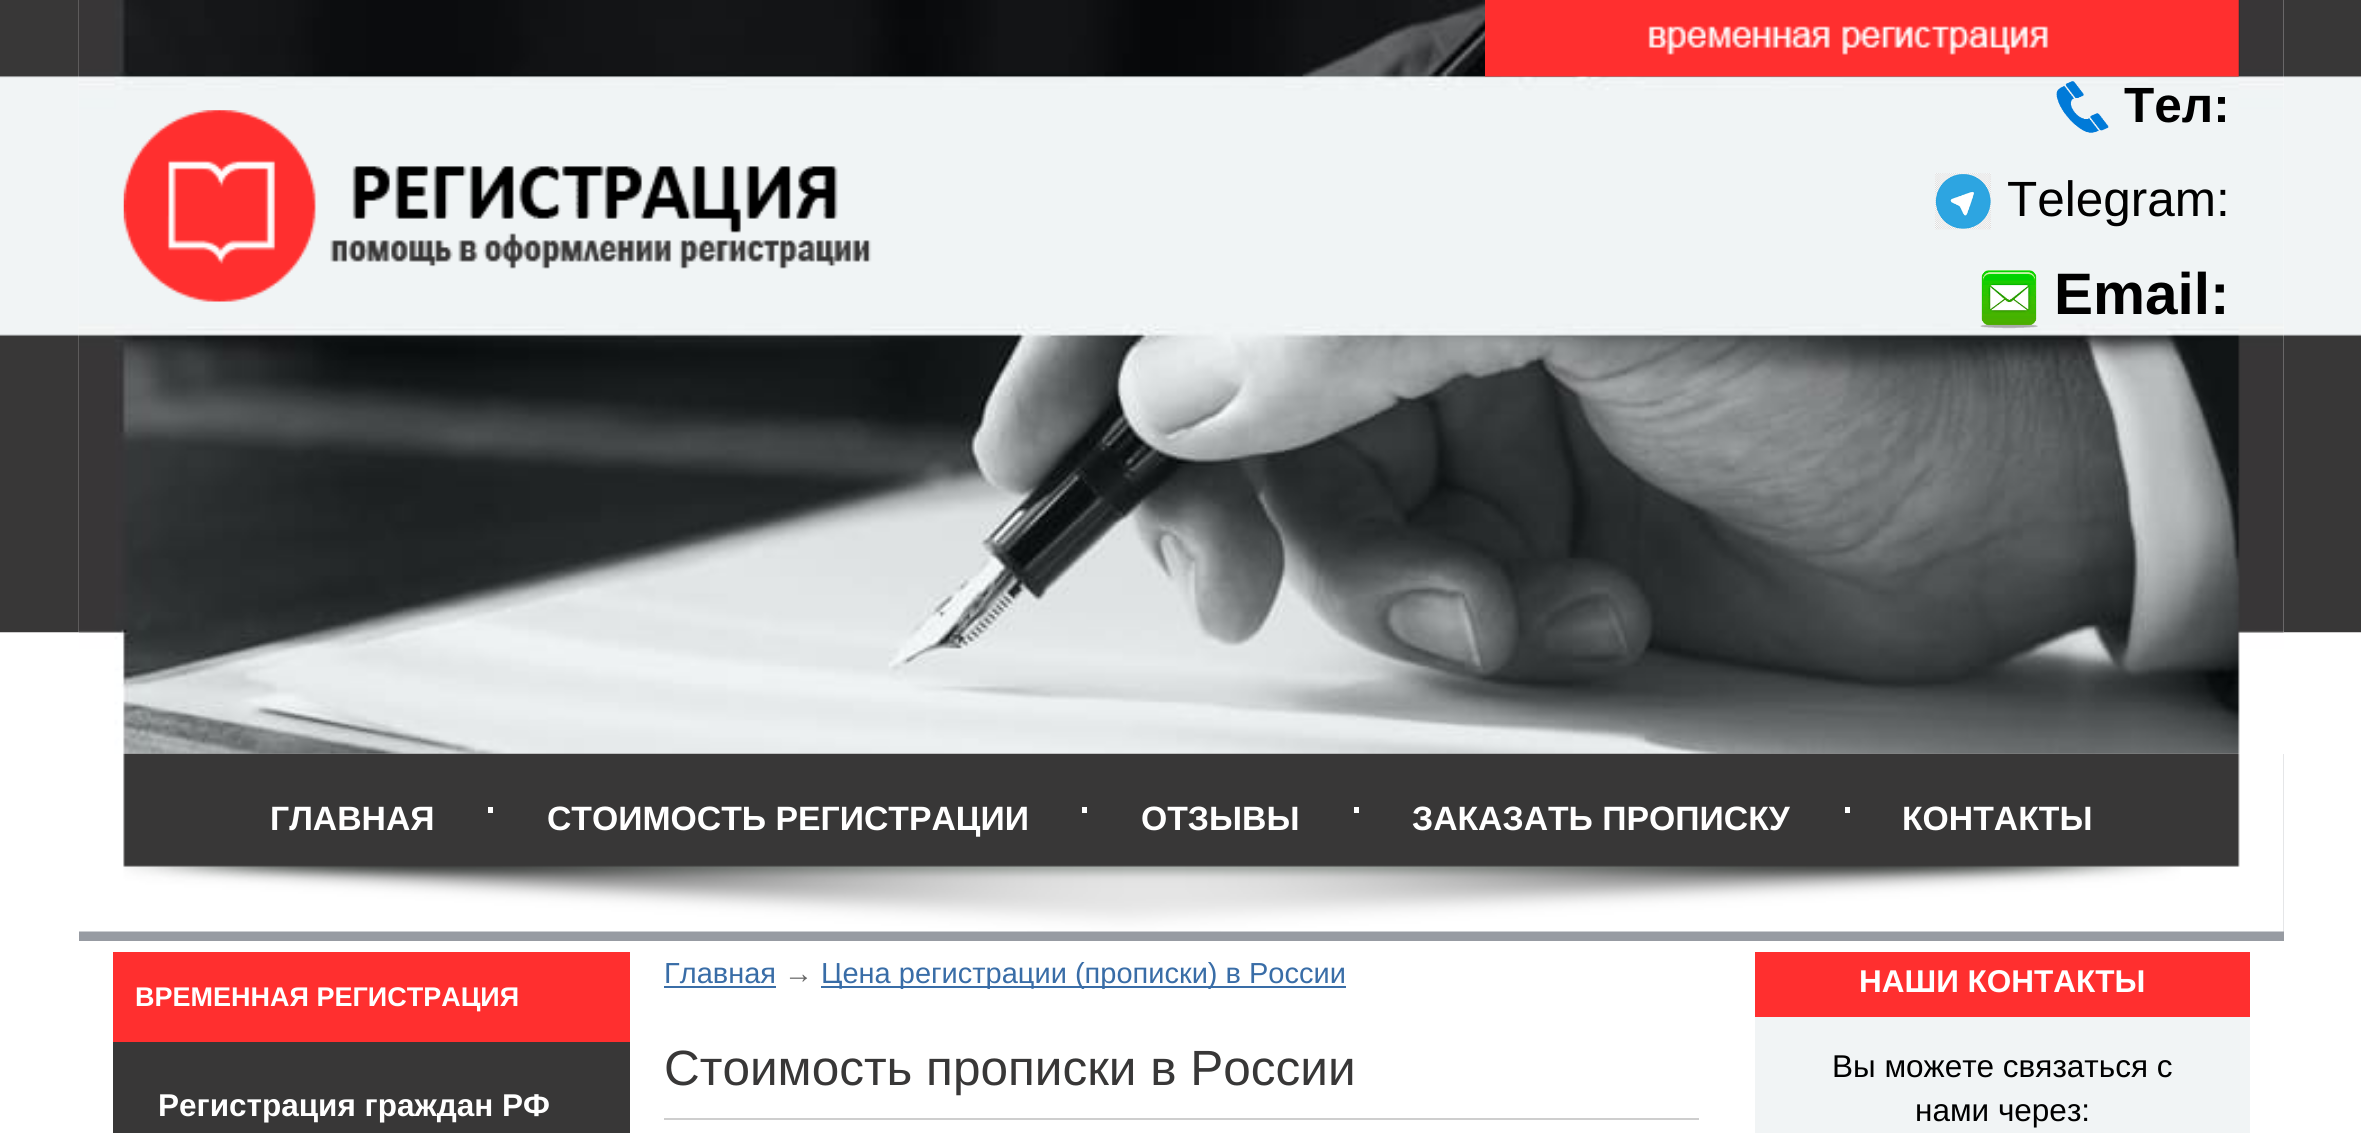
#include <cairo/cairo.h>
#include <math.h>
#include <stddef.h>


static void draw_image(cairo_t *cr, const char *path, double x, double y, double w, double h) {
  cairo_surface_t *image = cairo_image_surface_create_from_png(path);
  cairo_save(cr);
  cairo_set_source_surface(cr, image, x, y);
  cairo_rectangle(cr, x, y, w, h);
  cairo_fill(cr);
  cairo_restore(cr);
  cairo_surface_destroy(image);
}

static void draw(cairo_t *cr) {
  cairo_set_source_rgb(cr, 1, 1, 1);
  cairo_paint(cr);
  draw_image(cr, "images/1.png", 0, 0, 79, 633);
  draw_image(cr, "images/2.png", 2284, 0, 77, 633);
  draw_image(cr, "images/3.png", 78, 0, 2206, 754);
  draw_image(cr, "images/4.png", 1485, 0, 754, 77);
  draw_image(cr, "images/5.png", 123, 110, 749, 192);
  draw_image(cr, "images/6.png", 2056, 81, 53, 52);
  draw_image(cr, "images/7.png", 1935, 173, 56, 57);
  draw_image(cr, "images/8.png", 1980, 270, 58, 59);
  cairo_set_source_rgb(cr, 151 / 255.0, 155 / 255.0, 162 / 255.0);
  cairo_rectangle(cr, 79, 754, 2205, 187);
  cairo_fill(cr);
  draw_image(cr, "images/9.png", 79, 753, 2205, 179);
  cairo_set_source_rgb(cr, 1, 1, 1);
  cairo_rectangle(cr, 488, 807, 5, 6);
  cairo_fill(cr);
  cairo_rectangle(cr, 1082, 807, 5, 6);
  cairo_fill(cr);
  cairo_rectangle(cr, 1354, 807, 5, 6);
  cairo_fill(cr);
  cairo_rectangle(cr, 1845, 807, 5, 6);
  cairo_fill(cr);
  cairo_set_source_rgb(cr, 1, 47 / 255.0, 47 / 255.0);
  cairo_rectangle(cr, 113, 952, 517, 90);
  cairo_fill(cr);
  cairo_set_source_rgb(cr, 56 / 255.0, 55 / 255.0, 55 / 255.0);
  cairo_rectangle(cr, 113, 1042, 517, 91);
  cairo_fill(cr);
  cairo_set_source_rgb(cr, 57 / 255.0, 109 / 255.0, 167 / 255.0);
  cairo_rectangle(cr, 664, 986, 112, 2);
  cairo_fill(cr);
  cairo_rectangle(cr, 821, 986, 525, 2);
  cairo_fill(cr);
  cairo_set_source_rgb(cr, 206 / 255.0, 206 / 255.0, 206 / 255.0);
  cairo_rectangle(cr, 664, 1118, 1035, 2);
  cairo_fill(cr);
  cairo_set_source_rgb(cr, 1, 47 / 255.0, 47 / 255.0);
  cairo_rectangle(cr, 1755, 952, 495, 65);
  cairo_fill(cr);
  cairo_set_source_rgb(cr, 241 / 255.0, 244 / 255.0, 245 / 255.0);
  cairo_rectangle(cr, 1755, 1017, 495, 116);
  cairo_fill(cr);
  cairo_select_font_face(cr, "Liberation Sans", CAIRO_FONT_SLANT_NORMAL, CAIRO_FONT_WEIGHT_BOLD);
  cairo_set_font_size(cr, 49.5);
  cairo_set_source_rgb(cr, 0, 0, 0);
  cairo_move_to(cr, 2124, 122);
  cairo_show_text(cr, "Тел:");
  cairo_select_font_face(cr, "Liberation Sans", CAIRO_FONT_SLANT_NORMAL, CAIRO_FONT_WEIGHT_NORMAL);
  cairo_move_to(cr, 2007, 216);
  cairo_show_text(cr, "Telegram:");
  cairo_select_font_face(cr, "Liberation Sans", CAIRO_FONT_SLANT_NORMAL, CAIRO_FONT_WEIGHT_BOLD);
  cairo_set_font_size(cr, 58.5);
  cairo_move_to(cr, 2054, 314);
  cairo_show_text(cr, "Email:");
  cairo_set_font_size(cr, 33.75);
  cairo_set_source_rgb(cr, 1, 1, 1);
  cairo_move_to(cr, 270, 830);
  cairo_show_text(cr, "ГЛАВНАЯ");
  cairo_move_to(cr, 547, 830);
  cairo_show_text(cr, "СТОИМОСТЬ РЕГИСТРАЦИИ");
  cairo_move_to(cr, 1141, 830);
  cairo_show_text(cr, "ОТЗЫВЫ");
  cairo_move_to(cr, 1412, 830);
  cairo_show_text(cr, "ЗАКАЗАТЬ ПРОПИСКУ");
  cairo_move_to(cr, 1902, 830);
  cairo_show_text(cr, "КОНТАКТЫ");
  cairo_set_font_size(cr, 27);
  cairo_move_to(cr, 135, 1006);
  cairo_show_text(cr, "ВРЕМЕННАЯ РЕГИСТРАЦИЯ");
  cairo_set_font_size(cr, 31.5);
  cairo_move_to(cr, 158, 1116);
  cairo_show_text(cr, "Регистрация граждан РФ");
  cairo_select_font_face(cr, "Liberation Sans", CAIRO_FONT_SLANT_NORMAL, CAIRO_FONT_WEIGHT_NORMAL);
  cairo_set_font_size(cr, 29);
  cairo_set_source_rgb(cr, 57 / 255.0, 109 / 255.0, 167 / 255.0);
  cairo_move_to(cr, 664, 983);
  cairo_show_text(cr, "Главная");
  cairo_set_source_rgb(cr, 102 / 255.0, 102 / 255.0, 102 / 255.0);
  cairo_move_to(cr, 784, 983);
  cairo_show_text(cr, "→");
  cairo_set_source_rgb(cr, 57 / 255.0, 109 / 255.0, 167 / 255.0);
  cairo_move_to(cr, 821, 983);
  cairo_show_text(cr, "Цена регистрации (прописки) в России");
  cairo_set_font_size(cr, 49.5);
  cairo_set_source_rgb(cr, 56 / 255.0, 55 / 255.0, 55 / 255.0);
  cairo_move_to(cr, 664, 1085);
  cairo_show_text(cr, "Стоимость прописки в России");
  cairo_select_font_face(cr, "Liberation Sans", CAIRO_FONT_SLANT_NORMAL, CAIRO_FONT_WEIGHT_BOLD);
  cairo_set_font_size(cr, 31.5);
  cairo_set_source_rgb(cr, 1, 1, 1);
  cairo_move_to(cr, 1859, 992);
  cairo_show_text(cr, "НАШИ КОНТАКТЫ");
  cairo_select_font_face(cr, "Liberation Sans", CAIRO_FONT_SLANT_NORMAL, CAIRO_FONT_WEIGHT_NORMAL);
  cairo_set_source_rgb(cr, 0, 0, 0);
  cairo_move_to(cr, 1832, 1077);
  cairo_show_text(cr, "Вы можете связаться с");
  cairo_move_to(cr, 1915, 1121);
  cairo_show_text(cr, "нами через:");
}

int main(void) {
  cairo_surface_t *surface = cairo_image_surface_create(CAIRO_FORMAT_RGB24, 2361, 1133);
  cairo_t *cr = cairo_create(surface);
  cairo_font_options_t *options = cairo_font_options_create();
  cairo_font_options_set_hint_metrics(options, CAIRO_HINT_METRICS_OFF);
  cairo_font_options_set_hint_style(options, CAIRO_HINT_STYLE_NONE);
  cairo_set_font_options(cr, options);
  cairo_set_miter_limit(cr, 4);
  draw(cr);
  cairo_surface_write_to_png(surface, "out.png");
  cairo_font_options_destroy(options);
  cairo_destroy(cr);
  cairo_surface_destroy(surface);
  return 0;
}
